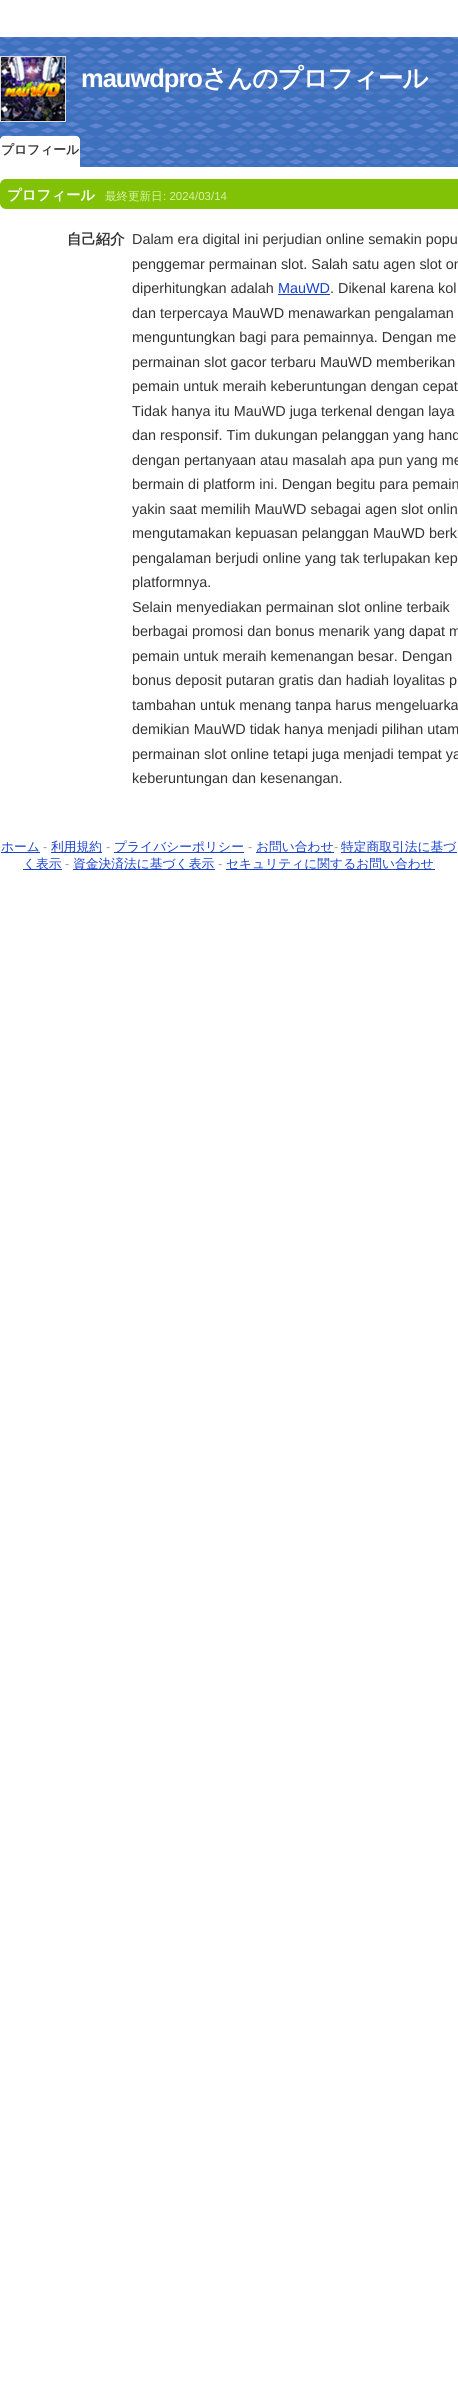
#include <cairo/cairo.h>
#include <math.h>
#include <stddef.h>


static void draw_spaced(cairo_t *cr, double x, double y, const char *s, double letter, double word) {
  cairo_move_to(cr, x, y);
  while (*s) {
    char ch[5] = {0};
    int n = 0;
    do ch[n++] = *s++; while ((*s & 0xC0) == 0x80);
    cairo_show_text(cr, ch);
    cairo_rel_move_to(cr, letter + word * (*ch == ' '), 0);
  }
}

static void draw_image(cairo_t *cr, const char *path, double x, double y, double w, double h) {
  cairo_surface_t *image = cairo_image_surface_create_from_png(path);
  cairo_save(cr);
  cairo_set_source_surface(cr, image, x, y);
  cairo_rectangle(cr, x, y, w, h);
  cairo_fill(cr);
  cairo_restore(cr);
  cairo_surface_destroy(image);
}

static void draw(cairo_t *cr) {
  cairo_set_source_rgb(cr, 1, 1, 1);
  cairo_paint(cr);
  draw_image(cr, "images/1.png", 0, 37, 458, 130);
  cairo_rectangle(cr, 0.5, 56.5, 65, 65);
  cairo_set_source_rgb(cr, 222 / 255.0, 222 / 255.0, 222 / 255.0);
  cairo_set_line_width(cr, 1);
  cairo_stroke(cr);
  draw_image(cr, "images/2.png", 1, 57, 64, 64);
  draw_image(cr, "images/3.png", 0, 136, 80, 31);
  draw_image(cr, "images/4.png", 0, 179, 458, 30);
  cairo_set_source_rgb(cr, 24 / 255.0, 65 / 255.0, 206 / 255.0);
  cairo_rectangle(cr, 278, 294, 52, 1);
  cairo_fill(cr);
  cairo_rectangle(cr, 1, 852, 39, 1);
  cairo_fill(cr);
  cairo_rectangle(cr, 51, 852, 51, 1);
  cairo_fill(cr);
  cairo_rectangle(cr, 114, 852, 130, 1);
  cairo_fill(cr);
  cairo_rectangle(cr, 256, 852, 78, 1);
  cairo_fill(cr);
  cairo_rectangle(cr, 341, 852, 116, 1);
  cairo_fill(cr);
  cairo_rectangle(cr, 23, 869, 39, 1);
  cairo_fill(cr);
  cairo_rectangle(cr, 73, 869, 142, 1);
  cairo_fill(cr);
  cairo_rectangle(cr, 226, 869, 209, 1);
  cairo_fill(cr);
  cairo_select_font_face(cr, "Liberation Sans", CAIRO_FONT_SLANT_NORMAL, CAIRO_FONT_WEIGHT_BOLD);
  cairo_set_font_size(cr, 25.5);
  cairo_set_source_rgb(cr, 1, 1, 1);
  draw_spaced(cr, 81, 87, "mauwdpro", -1, 0);
  cairo_select_font_face(cr, "WenQuanYi Zen Hei", CAIRO_FONT_SLANT_NORMAL, CAIRO_FONT_WEIGHT_BOLD);
  draw_spaced(cr, 202, 87, "さんのプロフィール", -1, 0);
  cairo_set_font_size(cr, 12.75);
  cairo_set_source_rgb(cr, 51 / 255.0, 51 / 255.0, 51 / 255.0);
  cairo_move_to(cr, 1, 154);
  cairo_show_text(cr, "プロフィール");
  cairo_set_font_size(cr, 14.4);
  cairo_set_source_rgb(cr, 1, 1, 1);
  cairo_move_to(cr, 7, 200);
  cairo_show_text(cr, "プロフィール");
  cairo_select_font_face(cr, "WenQuanYi Zen Hei Medium", CAIRO_FONT_SLANT_NORMAL, CAIRO_FONT_WEIGHT_NORMAL);
  cairo_set_font_size(cr, 11.5);
  cairo_set_source_rgb(cr, 217 / 255.0, 244 / 255.0, 166 / 255.0);
  cairo_move_to(cr, 105, 200);
  cairo_show_text(cr, "最終更新日");
  cairo_select_font_face(cr, "Liberation Sans", CAIRO_FONT_SLANT_NORMAL, CAIRO_FONT_WEIGHT_NORMAL);
  cairo_move_to(cr, 163, 200);
  cairo_show_text(cr, ": 2024/03/14");
  cairo_select_font_face(cr, "WenQuanYi Zen Hei", CAIRO_FONT_SLANT_NORMAL, CAIRO_FONT_WEIGHT_BOLD);
  cairo_set_font_size(cr, 14.4);
  cairo_set_source_rgb(cr, 51 / 255.0, 51 / 255.0, 51 / 255.0);
  cairo_move_to(cr, 67, 244);
  cairo_show_text(cr, "自己紹介");
  cairo_select_font_face(cr, "Liberation Sans", CAIRO_FONT_SLANT_NORMAL, CAIRO_FONT_WEIGHT_NORMAL);
  cairo_move_to(cr, 132, 244);
  cairo_show_text(cr, "Dalam era digital ini perjudian online semakin popu");
  cairo_move_to(cr, 132, 269);
  cairo_show_text(cr, "penggemar permainan slot. Salah satu agen slot on");
  cairo_move_to(cr, 132, 293);
  cairo_show_text(cr, "diperhitungkan adalah");
  cairo_set_source_rgb(cr, 24 / 255.0, 65 / 255.0, 206 / 255.0);
  cairo_move_to(cr, 278, 293);
  cairo_show_text(cr, "MauWD");
  cairo_set_source_rgb(cr, 51 / 255.0, 51 / 255.0, 51 / 255.0);
  cairo_move_to(cr, 330, 293);
  cairo_show_text(cr, ". Dikenal karena kol");
  cairo_move_to(cr, 132, 318);
  cairo_show_text(cr, "dan terpercaya MauWD menawarkan pengalaman");
  cairo_move_to(cr, 132, 342);
  cairo_show_text(cr, "menguntungkan bagi para pemainnya. Dengan me");
  cairo_move_to(cr, 132, 367);
  cairo_show_text(cr, "permainan slot gacor terbaru MauWD memberikan");
  cairo_move_to(cr, 132, 391);
  cairo_show_text(cr, "pemain untuk meraih keberuntungan dengan cepat");
  cairo_move_to(cr, 132, 416);
  cairo_show_text(cr, "Tidak hanya itu MauWD juga terkenal dengan laya");
  cairo_move_to(cr, 132, 440);
  cairo_show_text(cr, "dan responsif. Tim dukungan pelanggan yang hand");
  cairo_move_to(cr, 132, 465);
  cairo_show_text(cr, "dengan pertanyaan atau masalah apa pun yang me");
  cairo_move_to(cr, 132, 489);
  cairo_show_text(cr, "bermain di platform ini. Dengan begitu para pemain");
  cairo_move_to(cr, 132, 514);
  cairo_show_text(cr, "yakin saat memilih MauWD sebagai agen slot onlin");
  cairo_move_to(cr, 132, 538);
  cairo_show_text(cr, "mengutamakan kepuasan pelanggan MauWD berk");
  cairo_move_to(cr, 132, 563);
  cairo_show_text(cr, "pengalaman berjudi online yang tak terlupakan kep");
  cairo_move_to(cr, 132, 587);
  cairo_show_text(cr, "platformnya.");
  cairo_move_to(cr, 132, 612);
  cairo_show_text(cr, "Selain menyediakan permainan slot online terbaik");
  cairo_move_to(cr, 132, 636);
  cairo_show_text(cr, "berbagai promosi dan bonus menarik yang dapat m");
  cairo_move_to(cr, 132, 661);
  cairo_show_text(cr, "pemain untuk meraih kemenangan besar. Dengan");
  cairo_move_to(cr, 132, 685);
  cairo_show_text(cr, "bonus deposit putaran gratis dan hadiah loyalitas p");
  cairo_move_to(cr, 132, 710);
  cairo_show_text(cr, "tambahan untuk menang tanpa harus mengeluarka");
  cairo_move_to(cr, 132, 734);
  cairo_show_text(cr, "demikian MauWD tidak hanya menjadi pilihan utam");
  cairo_move_to(cr, 132, 759);
  cairo_show_text(cr, "permainan slot online tetapi juga menjadi tempat ya");
  cairo_move_to(cr, 132, 783);
  cairo_show_text(cr, "keberuntungan dan kesenangan.");
  cairo_select_font_face(cr, "WenQuanYi Zen Hei Medium", CAIRO_FONT_SLANT_NORMAL, CAIRO_FONT_WEIGHT_NORMAL);
  cairo_set_font_size(cr, 12.75);
  cairo_set_source_rgb(cr, 24 / 255.0, 65 / 255.0, 206 / 255.0);
  cairo_move_to(cr, 1, 851);
  cairo_show_text(cr, "ホーム");
  cairo_select_font_face(cr, "Liberation Sans", CAIRO_FONT_SLANT_NORMAL, CAIRO_FONT_WEIGHT_NORMAL);
  cairo_set_source_rgb(cr, 153 / 255.0, 153 / 255.0, 153 / 255.0);
  cairo_move_to(cr, 43, 851);
  cairo_show_text(cr, "-");
  cairo_select_font_face(cr, "WenQuanYi Zen Hei Medium", CAIRO_FONT_SLANT_NORMAL, CAIRO_FONT_WEIGHT_NORMAL);
  cairo_set_source_rgb(cr, 24 / 255.0, 65 / 255.0, 206 / 255.0);
  cairo_move_to(cr, 51, 851);
  cairo_show_text(cr, "利用規約");
  cairo_select_font_face(cr, "Liberation Sans", CAIRO_FONT_SLANT_NORMAL, CAIRO_FONT_WEIGHT_NORMAL);
  cairo_set_source_rgb(cr, 153 / 255.0, 153 / 255.0, 153 / 255.0);
  cairo_move_to(cr, 106, 851);
  cairo_show_text(cr, "-");
  cairo_select_font_face(cr, "WenQuanYi Zen Hei Medium", CAIRO_FONT_SLANT_NORMAL, CAIRO_FONT_WEIGHT_NORMAL);
  cairo_set_source_rgb(cr, 24 / 255.0, 65 / 255.0, 206 / 255.0);
  cairo_move_to(cr, 114, 851);
  cairo_show_text(cr, "プライバシーポリシー");
  cairo_select_font_face(cr, "Liberation Sans", CAIRO_FONT_SLANT_NORMAL, CAIRO_FONT_WEIGHT_NORMAL);
  cairo_set_source_rgb(cr, 153 / 255.0, 153 / 255.0, 153 / 255.0);
  cairo_move_to(cr, 248, 851);
  cairo_show_text(cr, "-");
  cairo_select_font_face(cr, "WenQuanYi Zen Hei Medium", CAIRO_FONT_SLANT_NORMAL, CAIRO_FONT_WEIGHT_NORMAL);
  cairo_set_source_rgb(cr, 24 / 255.0, 65 / 255.0, 206 / 255.0);
  cairo_move_to(cr, 256, 851);
  cairo_show_text(cr, "お問い合わせ");
  cairo_select_font_face(cr, "Liberation Sans", CAIRO_FONT_SLANT_NORMAL, CAIRO_FONT_WEIGHT_NORMAL);
  cairo_set_source_rgb(cr, 153 / 255.0, 153 / 255.0, 153 / 255.0);
  cairo_move_to(cr, 334, 851);
  cairo_show_text(cr, "-");
  cairo_select_font_face(cr, "WenQuanYi Zen Hei Medium", CAIRO_FONT_SLANT_NORMAL, CAIRO_FONT_WEIGHT_NORMAL);
  cairo_set_source_rgb(cr, 24 / 255.0, 65 / 255.0, 206 / 255.0);
  cairo_move_to(cr, 341, 851);
  cairo_show_text(cr, "特定商取引法に基づ");
  cairo_move_to(cr, 23, 868);
  cairo_show_text(cr, "く表示");
  cairo_select_font_face(cr, "Liberation Sans", CAIRO_FONT_SLANT_NORMAL, CAIRO_FONT_WEIGHT_NORMAL);
  cairo_set_source_rgb(cr, 153 / 255.0, 153 / 255.0, 153 / 255.0);
  cairo_move_to(cr, 65, 868);
  cairo_show_text(cr, "-");
  cairo_select_font_face(cr, "WenQuanYi Zen Hei Medium", CAIRO_FONT_SLANT_NORMAL, CAIRO_FONT_WEIGHT_NORMAL);
  cairo_set_source_rgb(cr, 24 / 255.0, 65 / 255.0, 206 / 255.0);
  cairo_move_to(cr, 73, 868);
  cairo_show_text(cr, "資金決済法に基づく表示");
  cairo_select_font_face(cr, "Liberation Sans", CAIRO_FONT_SLANT_NORMAL, CAIRO_FONT_WEIGHT_NORMAL);
  cairo_set_source_rgb(cr, 153 / 255.0, 153 / 255.0, 153 / 255.0);
  cairo_move_to(cr, 218, 868);
  cairo_show_text(cr, "-");
  cairo_select_font_face(cr, "WenQuanYi Zen Hei Medium", CAIRO_FONT_SLANT_NORMAL, CAIRO_FONT_WEIGHT_NORMAL);
  cairo_set_source_rgb(cr, 24 / 255.0, 65 / 255.0, 206 / 255.0);
  cairo_move_to(cr, 226, 868);
  cairo_show_text(cr, "セキュリティに関するお問い合わせ");
}

int main(void) {
  cairo_surface_t *surface = cairo_image_surface_create(CAIRO_FORMAT_RGB24, 458, 2402);
  cairo_t *cr = cairo_create(surface);
  cairo_font_options_t *options = cairo_font_options_create();
  cairo_font_options_set_hint_metrics(options, CAIRO_HINT_METRICS_OFF);
  cairo_font_options_set_hint_style(options, CAIRO_HINT_STYLE_NONE);
  cairo_set_font_options(cr, options);
  cairo_set_miter_limit(cr, 4);
  draw(cr);
  cairo_surface_write_to_png(surface, "out.png");
  cairo_font_options_destroy(options);
  cairo_destroy(cr);
  cairo_surface_destroy(surface);
  return 0;
}
